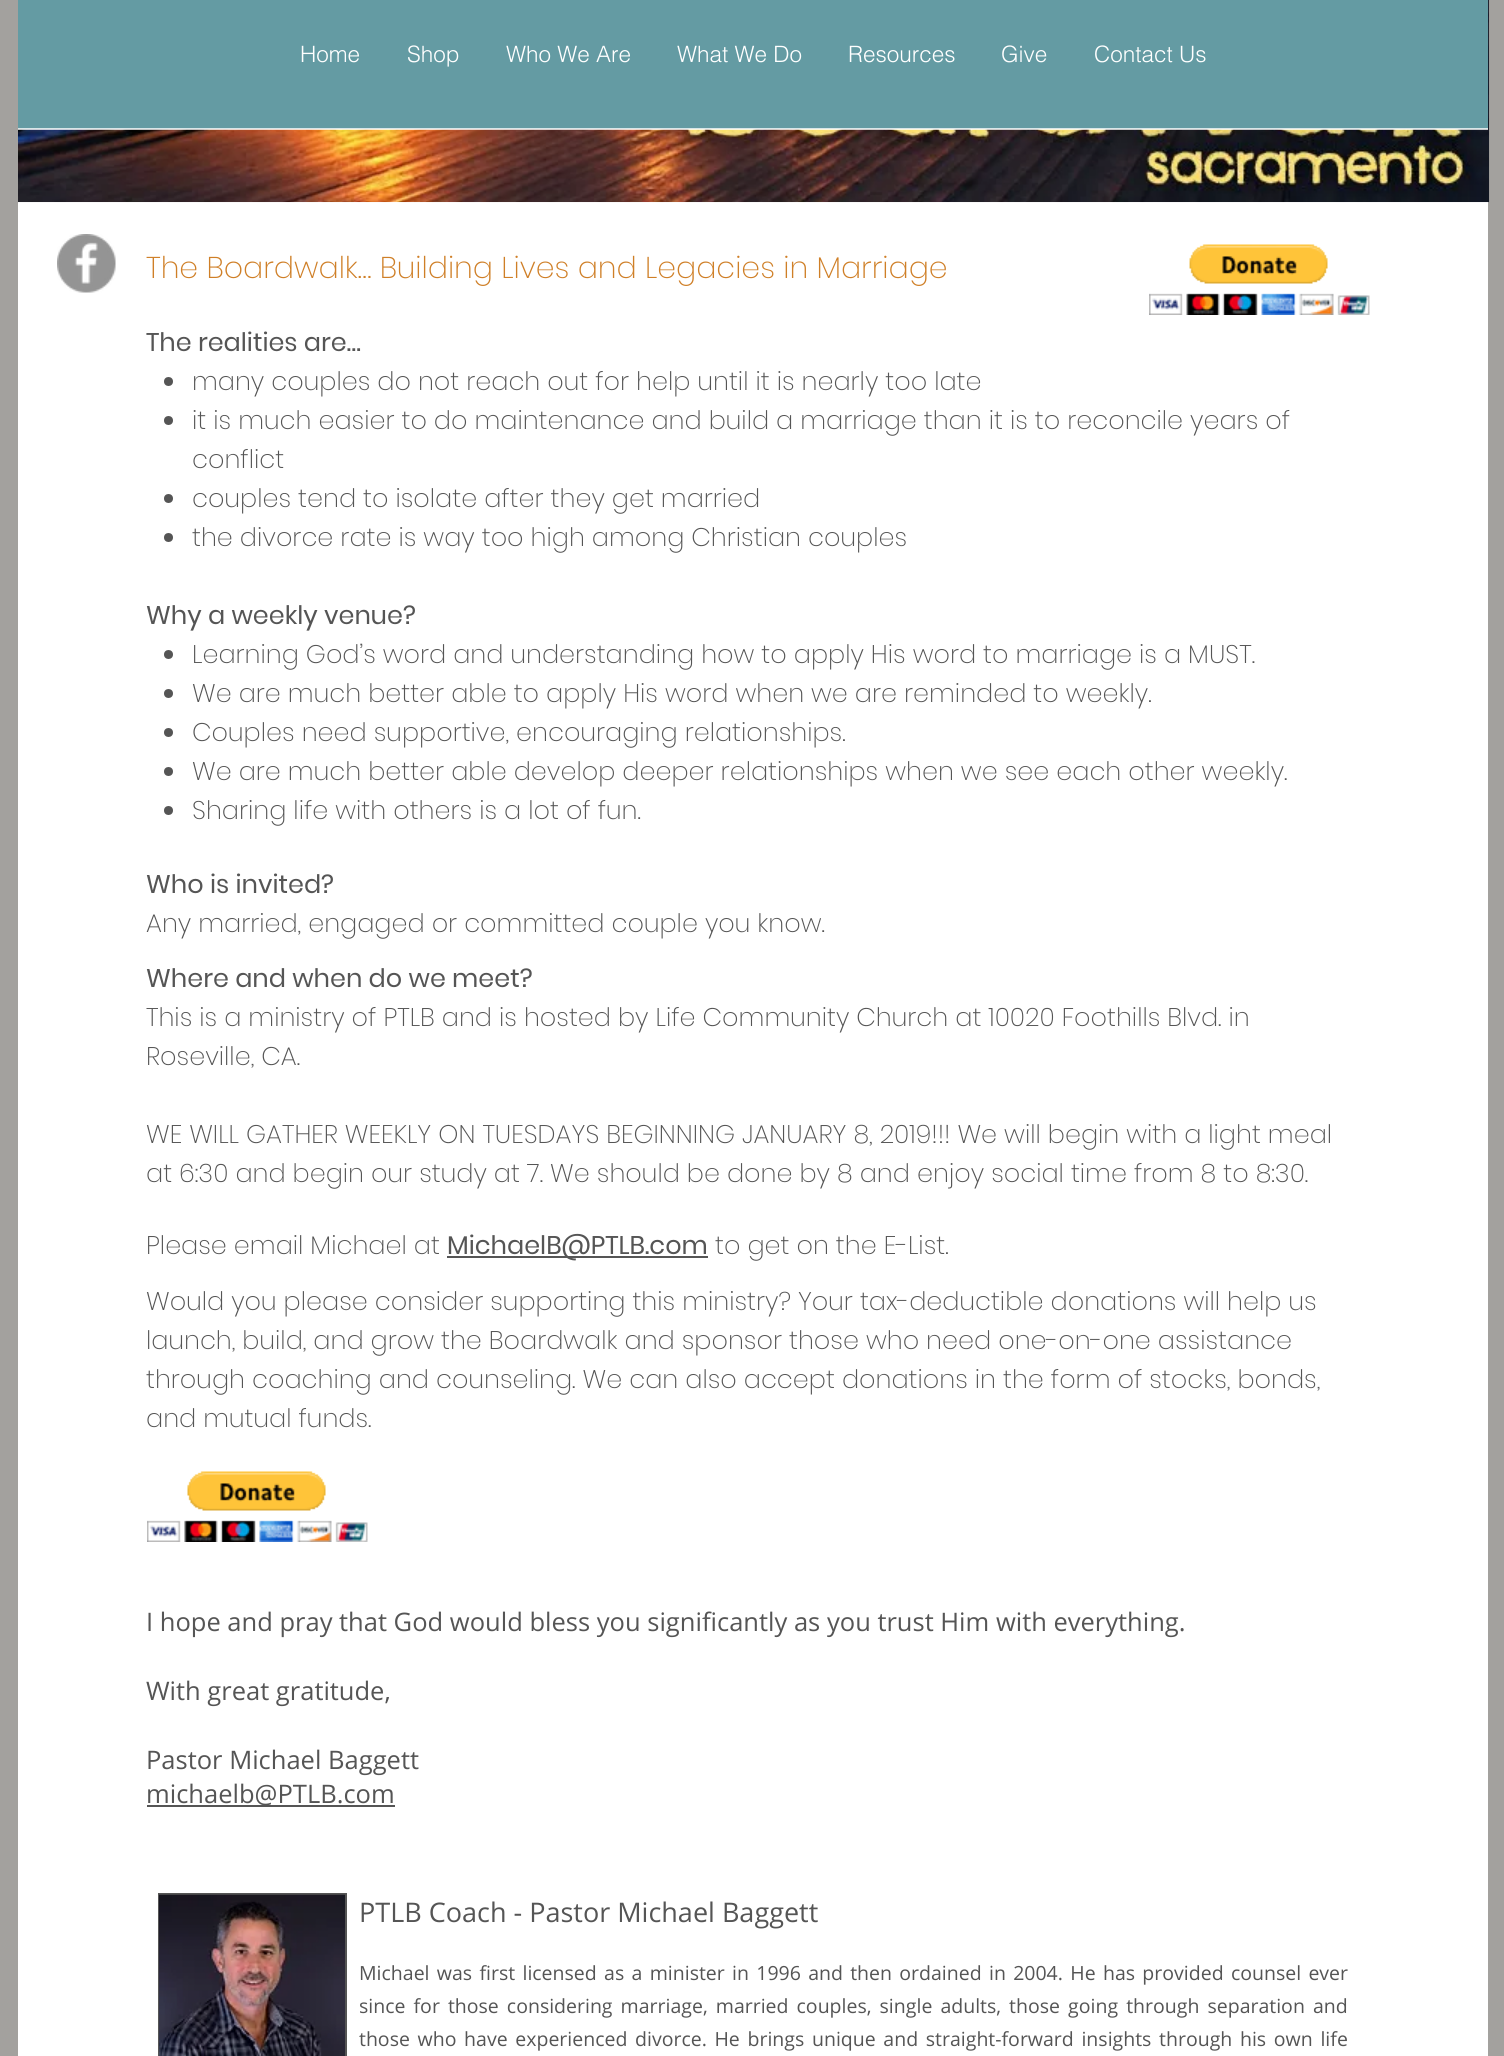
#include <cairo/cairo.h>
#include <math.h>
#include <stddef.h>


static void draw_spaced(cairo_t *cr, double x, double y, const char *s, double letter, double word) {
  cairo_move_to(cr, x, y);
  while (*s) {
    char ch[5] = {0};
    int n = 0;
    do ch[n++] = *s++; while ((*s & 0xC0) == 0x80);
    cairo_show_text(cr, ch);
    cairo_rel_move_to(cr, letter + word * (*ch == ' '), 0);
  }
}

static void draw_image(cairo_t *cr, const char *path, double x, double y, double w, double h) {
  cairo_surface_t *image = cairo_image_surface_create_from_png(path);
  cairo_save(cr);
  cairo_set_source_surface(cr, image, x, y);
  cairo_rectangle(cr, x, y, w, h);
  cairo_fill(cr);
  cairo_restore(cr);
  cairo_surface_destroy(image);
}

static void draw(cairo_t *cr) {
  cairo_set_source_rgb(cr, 163 / 255.0, 161 / 255.0, 158 / 255.0);
  cairo_paint(cr);
  cairo_set_source_rgb(cr, 1, 1, 1);
  cairo_rectangle(cr, 18, 202, 1470, 1854);
  cairo_fill(cr);
  draw_image(cr, "images/1.png", 18, 0, 1472, 203);
  cairo_set_source_rgb(cr, 100 / 255.0, 155 / 255.0, 163 / 255.0);
  cairo_rectangle(cr, 18, 0, 1470, 129);
  cairo_fill(cr);
  cairo_set_source_rgba(cr, 1, 1, 1, 0.75);
  cairo_rectangle(cr, 18, 128, 1470, 2);
  cairo_fill(cr);
  draw_image(cr, "images/2.png", 57, 234, 59, 59);
  draw_image(cr, "images/3.png", 1149, 244, 221, 71);
  cairo_set_source_rgb(cr, 85 / 255.0, 85 / 255.0, 85 / 255.0);
  cairo_arc(cr, 168.5, 381.5, 4.5, 0, 2 * M_PI);
  cairo_fill(cr);
  cairo_arc(cr, 168.5, 420.5, 4.5, 0, 2 * M_PI);
  cairo_fill(cr);
  cairo_arc(cr, 168.5, 498.5, 4.5, 0, 2 * M_PI);
  cairo_fill(cr);
  cairo_arc(cr, 168.5, 537.5, 4.5, 0, 2 * M_PI);
  cairo_fill(cr);
  cairo_arc(cr, 168.5, 654.5, 4.5, 0, 2 * M_PI);
  cairo_fill(cr);
  cairo_arc(cr, 168.5, 693.5, 4.5, 0, 2 * M_PI);
  cairo_fill(cr);
  cairo_arc(cr, 168.5, 732.5, 4.5, 0, 2 * M_PI);
  cairo_fill(cr);
  cairo_arc(cr, 168.5, 771.5, 4.5, 0, 2 * M_PI);
  cairo_fill(cr);
  cairo_arc(cr, 168.5, 810.5, 4.5, 0, 2 * M_PI);
  cairo_fill(cr);
  cairo_rectangle(cr, 447, 1256, 261, 2);
  cairo_fill(cr);
  draw_image(cr, "images/4.png", 147, 1471, 221, 71);
  cairo_rectangle(cr, 147, 1805, 248, 2);
  cairo_fill(cr);
  cairo_rectangle(cr, 158, 1893, 189, 163);
  cairo_fill(cr);
  draw_image(cr, "images/5.png", 159, 1894, 186, 162);
  cairo_select_font_face(cr, "helvetica Light", CAIRO_FONT_SLANT_NORMAL, CAIRO_FONT_WEIGHT_NORMAL);
  cairo_set_font_size(cr, 22.5);
  cairo_set_source_rgb(cr, 1, 1, 1);
  cairo_move_to(cr, 300, 62);
  cairo_show_text(cr, "Home");
  cairo_move_to(cr, 407, 62);
  cairo_show_text(cr, "Shop");
  cairo_move_to(cr, 506, 62);
  cairo_show_text(cr, "Who We Are");
  cairo_move_to(cr, 677, 62);
  cairo_show_text(cr, "What We Do");
  cairo_move_to(cr, 848, 62);
  cairo_show_text(cr, "Resources");
  cairo_move_to(cr, 1001, 62);
  cairo_show_text(cr, "Give");
  cairo_move_to(cr, 1094, 62);
  cairo_show_text(cr, "Contact Us");
  cairo_select_font_face(cr, "Poppins ExtraLight", CAIRO_FONT_SLANT_NORMAL, CAIRO_FONT_WEIGHT_NORMAL);
  cairo_set_font_size(cr, 30);
  cairo_set_source_rgb(cr, 207 / 255.0, 127 / 255.0, 39 / 255.0);
  cairo_move_to(cr, 146, 278);
  cairo_show_text(cr, "The Boardwalk… Building Lives and Legacies in Marriage");
  cairo_select_font_face(cr, "Poppins", CAIRO_FONT_SLANT_NORMAL, CAIRO_FONT_WEIGHT_NORMAL);
  cairo_set_font_size(cr, 25.5);
  cairo_set_source_rgb(cr, 85 / 255.0, 85 / 255.0, 85 / 255.0);
  cairo_move_to(cr, 146, 351);
  cairo_show_text(cr, "The realities are…");
  cairo_select_font_face(cr, "Poppins ExtraLight", CAIRO_FONT_SLANT_NORMAL, CAIRO_FONT_WEIGHT_NORMAL);
  cairo_move_to(cr, 192, 390);
  cairo_show_text(cr, "many couples do not reach out for help until it is nearly too late");
  cairo_move_to(cr, 192, 429);
  cairo_show_text(cr, "it is much easier to do maintenance and build a marriage than it is to reconcile years of");
  cairo_move_to(cr, 192, 468);
  cairo_show_text(cr, "conflict");
  cairo_move_to(cr, 192, 507);
  cairo_show_text(cr, "couples tend to isolate after they get married");
  cairo_move_to(cr, 192, 546);
  cairo_show_text(cr, "the divorce rate is way too high among Christian couples");
  cairo_select_font_face(cr, "Poppins", CAIRO_FONT_SLANT_NORMAL, CAIRO_FONT_WEIGHT_NORMAL);
  cairo_move_to(cr, 146, 624);
  cairo_show_text(cr, "Why a weekly venue?");
  cairo_select_font_face(cr, "Poppins ExtraLight", CAIRO_FONT_SLANT_NORMAL, CAIRO_FONT_WEIGHT_NORMAL);
  cairo_move_to(cr, 192, 663);
  cairo_show_text(cr, "Learning God’s word and understanding how to apply His word to marriage is a MUST.");
  cairo_move_to(cr, 192, 702);
  cairo_show_text(cr, "We are much better able to apply His word when we are reminded to weekly.");
  cairo_move_to(cr, 192, 741);
  cairo_show_text(cr, "Couples need supportive, encouraging relationships.");
  cairo_move_to(cr, 192, 780);
  cairo_show_text(cr, "We are much better able develop deeper relationships when we see each other weekly.");
  cairo_move_to(cr, 192, 819);
  cairo_show_text(cr, "Sharing life with others is a lot of fun.");
  cairo_select_font_face(cr, "Poppins", CAIRO_FONT_SLANT_NORMAL, CAIRO_FONT_WEIGHT_NORMAL);
  cairo_move_to(cr, 146, 893);
  cairo_show_text(cr, "Who is invited?");
  cairo_select_font_face(cr, "Poppins ExtraLight", CAIRO_FONT_SLANT_NORMAL, CAIRO_FONT_WEIGHT_NORMAL);
  cairo_move_to(cr, 146, 932);
  cairo_show_text(cr, "Any married, engaged or committed couple you know.");
  cairo_select_font_face(cr, "Poppins", CAIRO_FONT_SLANT_NORMAL, CAIRO_FONT_WEIGHT_NORMAL);
  cairo_move_to(cr, 146, 987);
  cairo_show_text(cr, "Where and when do we meet?");
  cairo_select_font_face(cr, "Poppins ExtraLight", CAIRO_FONT_SLANT_NORMAL, CAIRO_FONT_WEIGHT_NORMAL);
  cairo_move_to(cr, 146, 1026);
  cairo_show_text(cr, "This is a ministry of PTLB and is hosted by Life Community Church at 10020 Foothills Blvd. in");
  cairo_move_to(cr, 146, 1065);
  cairo_show_text(cr, "Roseville, CA.");
  cairo_move_to(cr, 146, 1143);
  cairo_show_text(cr, "WE WILL GATHER WEEKLY ON TUESDAYS BEGINNING JANUARY 8, 2019!!! We will begin with a light meal");
  cairo_move_to(cr, 146, 1182);
  cairo_show_text(cr, "at 6:30 and begin our study at 7. We should be done by 8 and enjoy social time from 8 to 8:30.");
  cairo_move_to(cr, 146, 1254);
  cairo_show_text(cr, "Please email Michael at");
  cairo_select_font_face(cr, "Poppins", CAIRO_FONT_SLANT_NORMAL, CAIRO_FONT_WEIGHT_NORMAL);
  cairo_move_to(cr, 447, 1254);
  cairo_show_text(cr, "MichaelB@PTLB.com");
  cairo_select_font_face(cr, "Poppins ExtraLight", CAIRO_FONT_SLANT_NORMAL, CAIRO_FONT_WEIGHT_NORMAL);
  cairo_move_to(cr, 715, 1254);
  cairo_show_text(cr, "to get on the E-List.");
  cairo_move_to(cr, 146, 1310);
  cairo_show_text(cr, "Would you please consider supporting this ministry? Your tax-deductible donations will help us");
  cairo_move_to(cr, 146, 1349);
  cairo_show_text(cr, "launch, build, and grow the Boardwalk and sponsor those who need one-on-one assistance");
  cairo_move_to(cr, 146, 1388);
  cairo_show_text(cr, "through coaching and counseling. We can also accept donations in the form of stocks, bonds,");
  cairo_move_to(cr, 146, 1427);
  cairo_show_text(cr, "and mutual funds.");
  cairo_select_font_face(cr, "Open Sans", CAIRO_FONT_SLANT_NORMAL, CAIRO_FONT_WEIGHT_NORMAL);
  cairo_move_to(cr, 146, 1631);
  cairo_show_text(cr, "I hope and pray that God would bless you significantly as you trust Him with everything.");
  cairo_move_to(cr, 146, 1700);
  cairo_show_text(cr, "With great gratitude,");
  cairo_move_to(cr, 146, 1769);
  cairo_show_text(cr, "Pastor Michael Baggett");
  cairo_move_to(cr, 146, 1803);
  cairo_show_text(cr, "michaelb@PTLB.com");
  cairo_set_font_size(cr, 27);
  cairo_move_to(cr, 359, 1922);
  cairo_show_text(cr, "PTLB Coach - Pastor Michael Baggett");
  cairo_set_font_size(cr, 19.5);
  draw_spaced(cr, 359, 1980, "Michael was first licensed as a minister in 1996 and then ordained in 2004. He has provided counsel ever", 0, 2.25);
  draw_spaced(cr, 359, 2013, "since for those considering marriage, married couples, single adults, those going through separation and", 0, 3);
  draw_spaced(cr, 359, 2046, "those who have experienced divorce. He brings unique and straight-forward insights through his own life", 0, 2.6);
}

int main(void) {
  cairo_surface_t *surface = cairo_image_surface_create(CAIRO_FORMAT_RGB24, 1504, 2056);
  cairo_t *cr = cairo_create(surface);
  cairo_font_options_t *options = cairo_font_options_create();
  cairo_font_options_set_hint_metrics(options, CAIRO_HINT_METRICS_OFF);
  cairo_font_options_set_hint_style(options, CAIRO_HINT_STYLE_NONE);
  cairo_set_font_options(cr, options);
  cairo_set_miter_limit(cr, 4);
  draw(cr);
  cairo_surface_write_to_png(surface, "out.png");
  cairo_font_options_destroy(options);
  cairo_destroy(cr);
  cairo_surface_destroy(surface);
  return 0;
}
